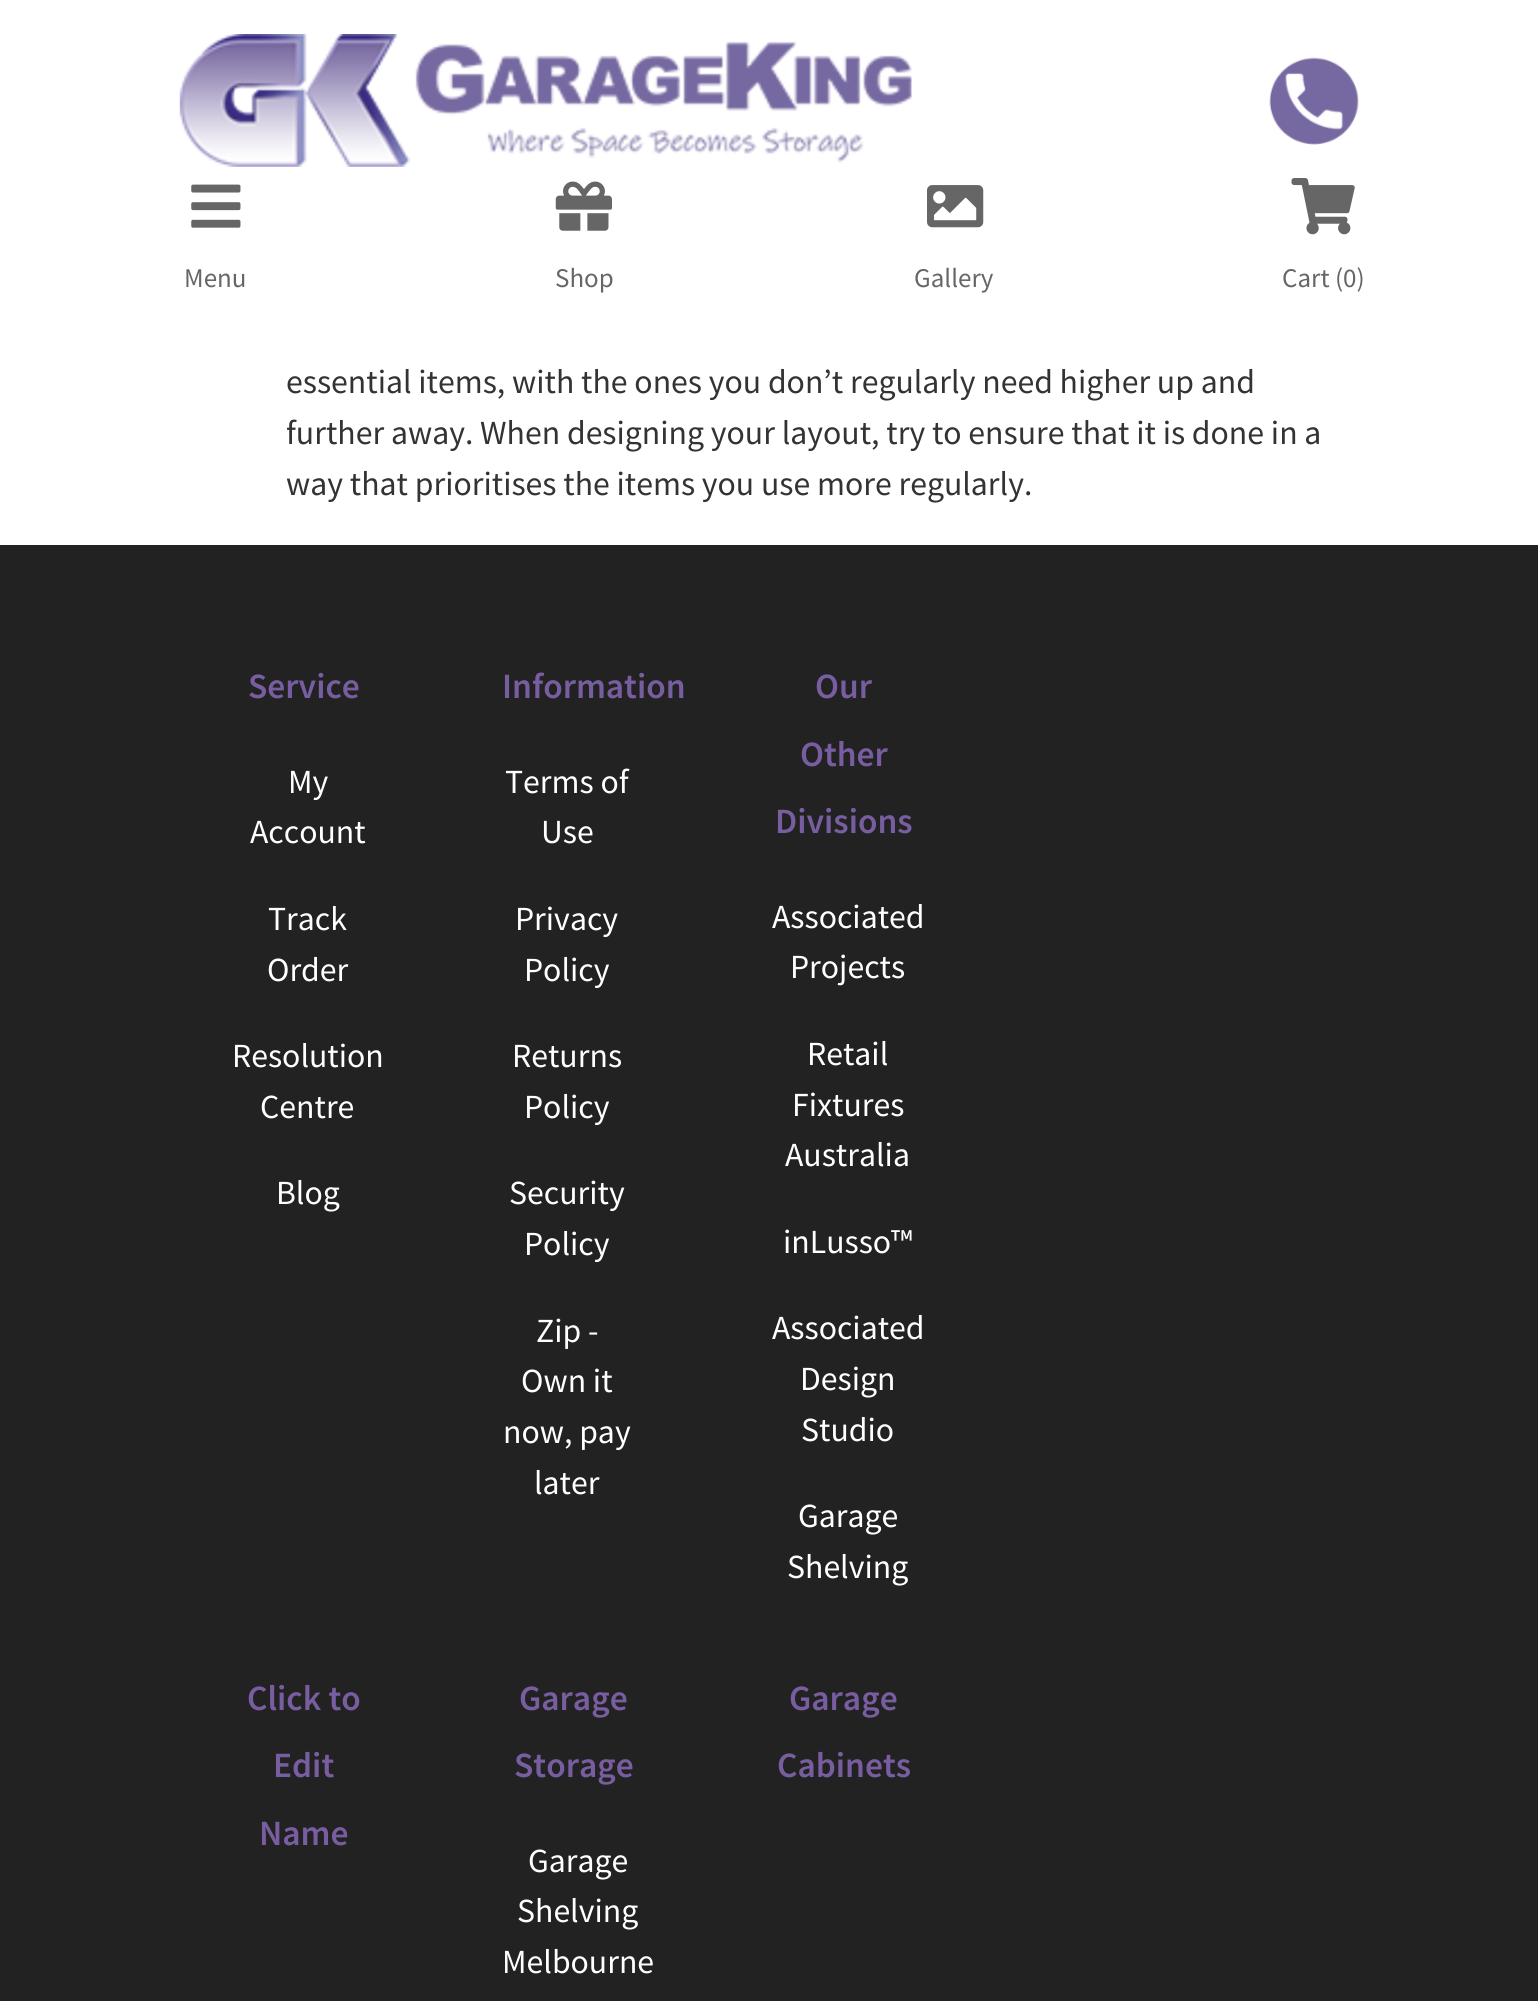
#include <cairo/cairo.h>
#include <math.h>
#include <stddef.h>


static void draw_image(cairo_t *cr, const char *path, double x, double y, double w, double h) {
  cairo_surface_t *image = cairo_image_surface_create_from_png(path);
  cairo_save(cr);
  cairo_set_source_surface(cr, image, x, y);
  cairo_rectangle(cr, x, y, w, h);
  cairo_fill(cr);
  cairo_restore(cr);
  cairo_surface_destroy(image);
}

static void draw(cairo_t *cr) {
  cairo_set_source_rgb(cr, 1, 1, 1);
  cairo_paint(cr);
  draw_image(cr, "images/1.png", 179, 34, 733, 133);
  draw_image(cr, "images/2.png", 1269, 57, 90, 88);
  draw_image(cr, "images/3.png", 191, 184, 50, 44);
  draw_image(cr, "images/4.png", 555, 181, 57, 50);
  draw_image(cr, "images/5.png", 927, 185, 57, 43);
  draw_image(cr, "images/6.png", 1291, 178, 64, 57);
  cairo_set_source_rgb(cr, 34 / 255.0, 34 / 255.0, 34 / 255.0);
  cairo_rectangle(cr, 0, 545, 1538, 1456);
  cairo_fill(cr);
  cairo_select_font_face(cr, "Source Sans Pro", CAIRO_FONT_SLANT_NORMAL, CAIRO_FONT_WEIGHT_NORMAL);
  cairo_set_font_size(cr, 27);
  cairo_set_source_rgb(cr, 102 / 255.0, 102 / 255.0, 102 / 255.0);
  cairo_move_to(cr, 184, 287);
  cairo_show_text(cr, "Menu");
  cairo_move_to(cr, 555, 287);
  cairo_show_text(cr, "Shop");
  cairo_move_to(cr, 914, 287);
  cairo_show_text(cr, "Gallery");
  cairo_move_to(cr, 1282, 287);
  cairo_show_text(cr, "Cart (0)");
  cairo_set_font_size(cr, 33.75);
  cairo_set_source_rgb(cr, 51 / 255.0, 51 / 255.0, 51 / 255.0);
  cairo_move_to(cr, 286, 393);
  cairo_show_text(cr, "essential items, with the ones you don’t regularly need higher up and");
  cairo_move_to(cr, 286, 444);
  cairo_show_text(cr, "further away. When designing your layout, try to ensure that it is done in a");
  cairo_move_to(cr, 286, 495);
  cairo_show_text(cr, "way that prioritises the items you use more regularly.");
  cairo_select_font_face(cr, "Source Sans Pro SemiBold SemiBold", CAIRO_FONT_SLANT_NORMAL, CAIRO_FONT_WEIGHT_NORMAL);
  cairo_set_font_size(cr, 35.5);
  cairo_set_source_rgb(cr, 120 / 255.0, 93 / 255.0, 161 / 255.0);
  cairo_move_to(cr, 248, 698);
  cairo_show_text(cr, "Service");
  cairo_select_font_face(cr, "Source Sans Pro", CAIRO_FONT_SLANT_NORMAL, CAIRO_FONT_WEIGHT_NORMAL);
  cairo_set_font_size(cr, 33.75);
  cairo_set_source_rgb(cr, 1, 1, 1);
  cairo_move_to(cr, 288, 793);
  cairo_show_text(cr, "My");
  cairo_move_to(cr, 250, 843);
  cairo_show_text(cr, "Account");
  cairo_move_to(cr, 268, 930);
  cairo_show_text(cr, "Track");
  cairo_move_to(cr, 267, 981);
  cairo_show_text(cr, "Order");
  cairo_move_to(cr, 232, 1067);
  cairo_show_text(cr, "Resolution");
  cairo_move_to(cr, 260, 1118);
  cairo_show_text(cr, "Centre");
  cairo_move_to(cr, 276, 1204);
  cairo_show_text(cr, "Blog");
  cairo_select_font_face(cr, "Source Sans Pro SemiBold SemiBold", CAIRO_FONT_SLANT_NORMAL, CAIRO_FONT_WEIGHT_NORMAL);
  cairo_set_font_size(cr, 35.5);
  cairo_set_source_rgb(cr, 120 / 255.0, 93 / 255.0, 161 / 255.0);
  cairo_move_to(cr, 502, 698);
  cairo_show_text(cr, "Information");
  cairo_select_font_face(cr, "Source Sans Pro", CAIRO_FONT_SLANT_NORMAL, CAIRO_FONT_WEIGHT_NORMAL);
  cairo_set_font_size(cr, 33.75);
  cairo_set_source_rgb(cr, 1, 1, 1);
  cairo_move_to(cr, 505, 793);
  cairo_show_text(cr, "Terms of");
  cairo_move_to(cr, 541, 843);
  cairo_show_text(cr, "Use");
  cairo_move_to(cr, 515, 930);
  cairo_show_text(cr, "Privacy");
  cairo_move_to(cr, 524, 981);
  cairo_show_text(cr, "Policy");
  cairo_move_to(cr, 512, 1067);
  cairo_show_text(cr, "Returns");
  cairo_move_to(cr, 524, 1118);
  cairo_show_text(cr, "Policy");
  cairo_move_to(cr, 509, 1204);
  cairo_show_text(cr, "Security");
  cairo_move_to(cr, 524, 1255);
  cairo_show_text(cr, "Policy");
  cairo_move_to(cr, 536, 1342);
  cairo_show_text(cr, "Zip -");
  cairo_move_to(cr, 521, 1392);
  cairo_show_text(cr, "Own it");
  cairo_move_to(cr, 503, 1443);
  cairo_show_text(cr, "now, pay");
  cairo_move_to(cr, 534, 1494);
  cairo_show_text(cr, "later");
  cairo_select_font_face(cr, "Source Sans Pro SemiBold SemiBold", CAIRO_FONT_SLANT_NORMAL, CAIRO_FONT_WEIGHT_NORMAL);
  cairo_set_font_size(cr, 35.5);
  cairo_set_source_rgb(cr, 120 / 255.0, 93 / 255.0, 161 / 255.0);
  cairo_move_to(cr, 815, 698);
  cairo_show_text(cr, "Our");
  cairo_move_to(cr, 800, 766);
  cairo_show_text(cr, "Other");
  cairo_move_to(cr, 775, 833);
  cairo_show_text(cr, "Divisions");
  cairo_select_font_face(cr, "Source Sans Pro", CAIRO_FONT_SLANT_NORMAL, CAIRO_FONT_WEIGHT_NORMAL);
  cairo_set_font_size(cr, 33.75);
  cairo_set_source_rgb(cr, 1, 1, 1);
  cairo_move_to(cr, 772, 928);
  cairo_show_text(cr, "Associated");
  cairo_move_to(cr, 790, 978);
  cairo_show_text(cr, "Projects");
  cairo_move_to(cr, 807, 1065);
  cairo_show_text(cr, "Retail");
  cairo_move_to(cr, 792, 1116);
  cairo_show_text(cr, "Fixtures");
  cairo_move_to(cr, 785, 1166);
  cairo_show_text(cr, "Australia");
  cairo_move_to(cr, 783, 1253);
  cairo_show_text(cr, "inLusso™");
  cairo_move_to(cr, 772, 1339);
  cairo_show_text(cr, "Associated");
  cairo_move_to(cr, 800, 1390);
  cairo_show_text(cr, "Design");
  cairo_move_to(cr, 801, 1441);
  cairo_show_text(cr, "Studio");
  cairo_move_to(cr, 798, 1527);
  cairo_show_text(cr, "Garage");
  cairo_move_to(cr, 787, 1578);
  cairo_show_text(cr, "Shelving");
  cairo_select_font_face(cr, "Source Sans Pro SemiBold SemiBold", CAIRO_FONT_SLANT_NORMAL, CAIRO_FONT_WEIGHT_NORMAL);
  cairo_set_font_size(cr, 35.5);
  cairo_set_source_rgb(cr, 120 / 255.0, 93 / 255.0, 161 / 255.0);
  cairo_move_to(cr, 247, 1710);
  cairo_show_text(cr, "Click to");
  cairo_move_to(cr, 273, 1777);
  cairo_show_text(cr, "Edit");
  cairo_move_to(cr, 259, 1845);
  cairo_show_text(cr, "Name");
  cairo_move_to(cr, 519, 1710);
  cairo_show_text(cr, "Garage");
  cairo_move_to(cr, 514, 1777);
  cairo_show_text(cr, "Storage");
  cairo_select_font_face(cr, "Source Sans Pro", CAIRO_FONT_SLANT_NORMAL, CAIRO_FONT_WEIGHT_NORMAL);
  cairo_set_font_size(cr, 33.75);
  cairo_set_source_rgb(cr, 1, 1, 1);
  cairo_move_to(cr, 528, 1872);
  cairo_show_text(cr, "Garage");
  cairo_move_to(cr, 517, 1922);
  cairo_show_text(cr, "Shelving");
  cairo_move_to(cr, 502, 1973);
  cairo_show_text(cr, "Melbourne");
  cairo_select_font_face(cr, "Source Sans Pro SemiBold SemiBold", CAIRO_FONT_SLANT_NORMAL, CAIRO_FONT_WEIGHT_NORMAL);
  cairo_set_font_size(cr, 35.5);
  cairo_set_source_rgb(cr, 120 / 255.0, 93 / 255.0, 161 / 255.0);
  cairo_move_to(cr, 789, 1710);
  cairo_show_text(cr, "Garage");
  cairo_move_to(cr, 777, 1777);
  cairo_show_text(cr, "Cabinets");
}

int main(void) {
  cairo_surface_t *surface = cairo_image_surface_create(CAIRO_FORMAT_RGB24, 1538, 2001);
  cairo_t *cr = cairo_create(surface);
  cairo_font_options_t *options = cairo_font_options_create();
  cairo_font_options_set_hint_metrics(options, CAIRO_HINT_METRICS_OFF);
  cairo_font_options_set_hint_style(options, CAIRO_HINT_STYLE_NONE);
  cairo_set_font_options(cr, options);
  cairo_set_miter_limit(cr, 4);
  draw(cr);
  cairo_surface_write_to_png(surface, "out.png");
  cairo_font_options_destroy(options);
  cairo_destroy(cr);
  cairo_surface_destroy(surface);
  return 0;
}
